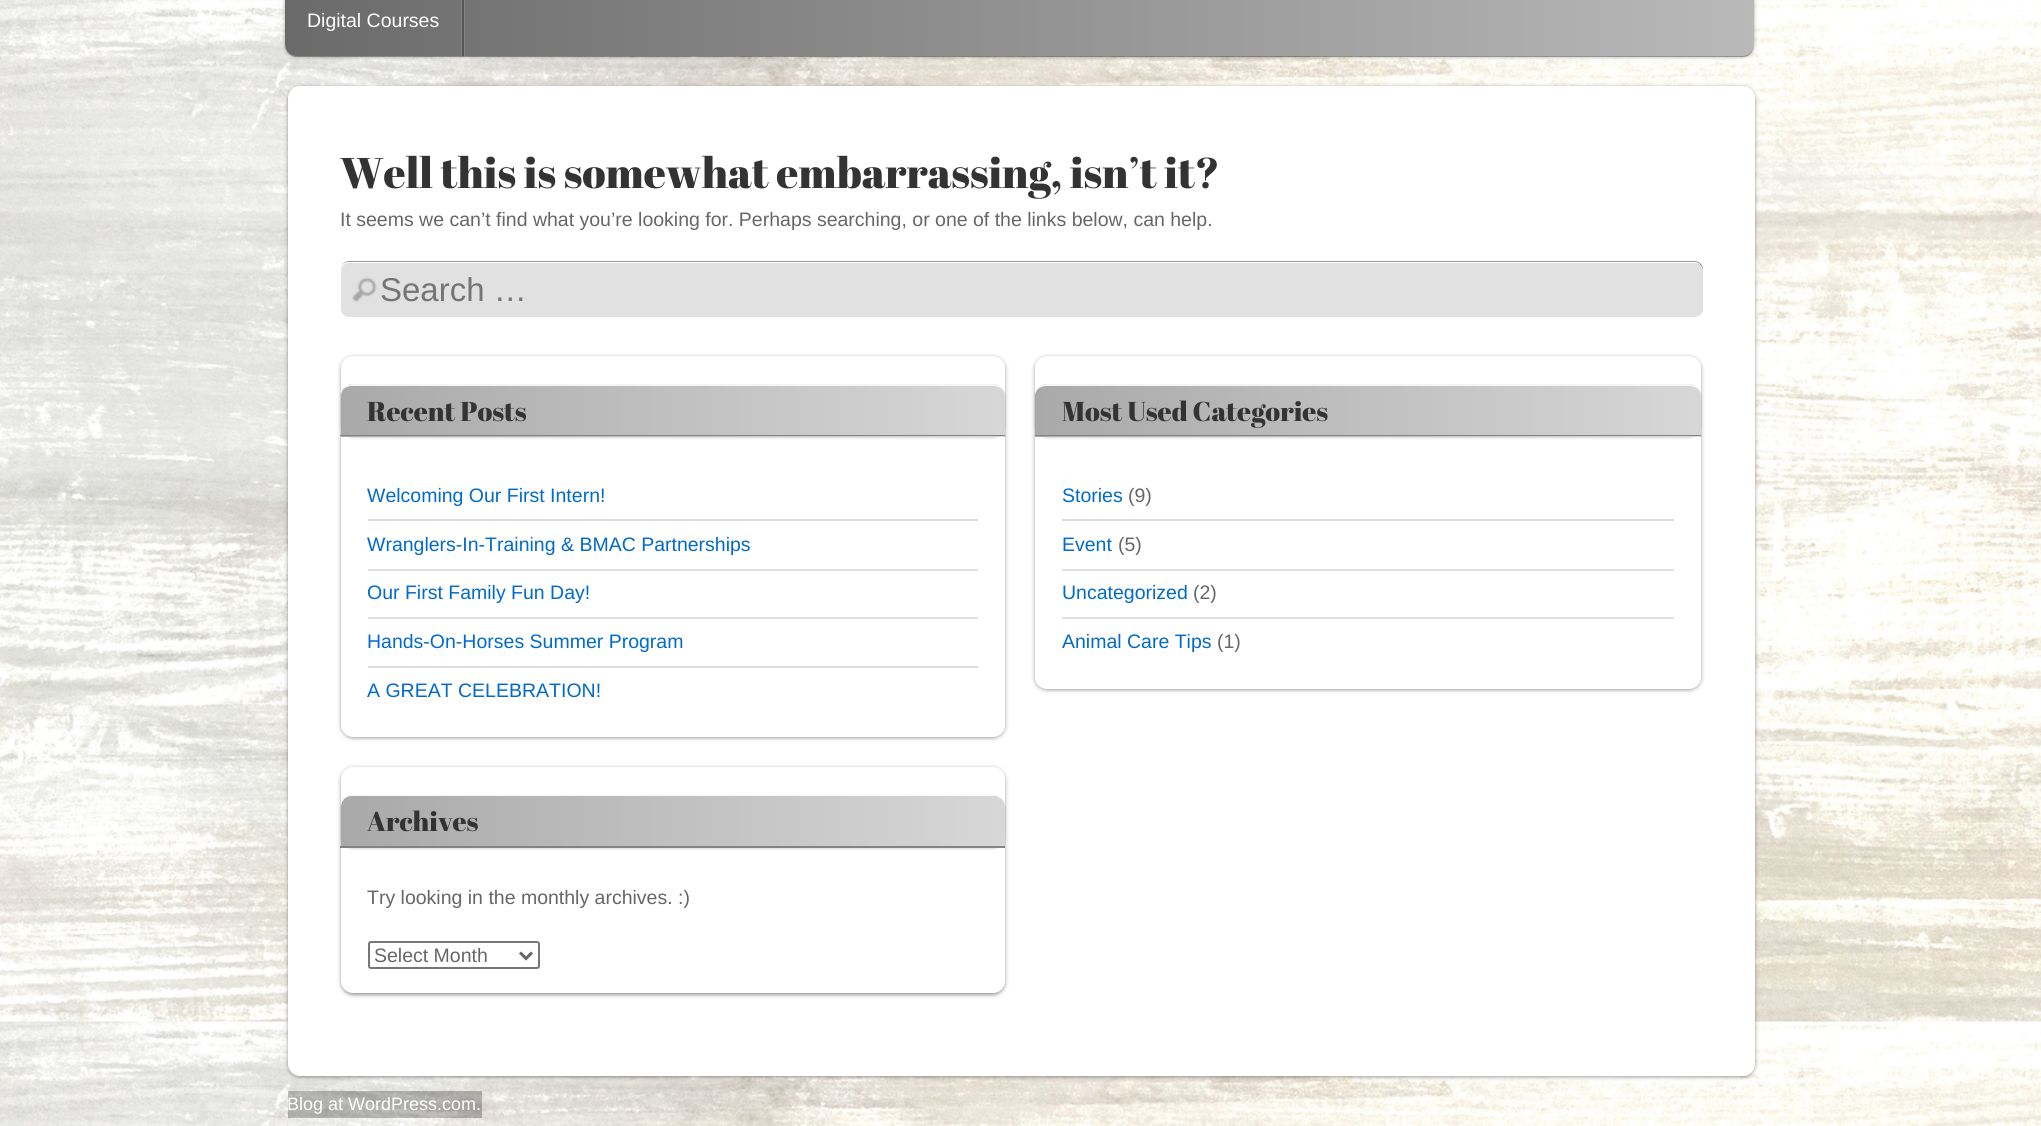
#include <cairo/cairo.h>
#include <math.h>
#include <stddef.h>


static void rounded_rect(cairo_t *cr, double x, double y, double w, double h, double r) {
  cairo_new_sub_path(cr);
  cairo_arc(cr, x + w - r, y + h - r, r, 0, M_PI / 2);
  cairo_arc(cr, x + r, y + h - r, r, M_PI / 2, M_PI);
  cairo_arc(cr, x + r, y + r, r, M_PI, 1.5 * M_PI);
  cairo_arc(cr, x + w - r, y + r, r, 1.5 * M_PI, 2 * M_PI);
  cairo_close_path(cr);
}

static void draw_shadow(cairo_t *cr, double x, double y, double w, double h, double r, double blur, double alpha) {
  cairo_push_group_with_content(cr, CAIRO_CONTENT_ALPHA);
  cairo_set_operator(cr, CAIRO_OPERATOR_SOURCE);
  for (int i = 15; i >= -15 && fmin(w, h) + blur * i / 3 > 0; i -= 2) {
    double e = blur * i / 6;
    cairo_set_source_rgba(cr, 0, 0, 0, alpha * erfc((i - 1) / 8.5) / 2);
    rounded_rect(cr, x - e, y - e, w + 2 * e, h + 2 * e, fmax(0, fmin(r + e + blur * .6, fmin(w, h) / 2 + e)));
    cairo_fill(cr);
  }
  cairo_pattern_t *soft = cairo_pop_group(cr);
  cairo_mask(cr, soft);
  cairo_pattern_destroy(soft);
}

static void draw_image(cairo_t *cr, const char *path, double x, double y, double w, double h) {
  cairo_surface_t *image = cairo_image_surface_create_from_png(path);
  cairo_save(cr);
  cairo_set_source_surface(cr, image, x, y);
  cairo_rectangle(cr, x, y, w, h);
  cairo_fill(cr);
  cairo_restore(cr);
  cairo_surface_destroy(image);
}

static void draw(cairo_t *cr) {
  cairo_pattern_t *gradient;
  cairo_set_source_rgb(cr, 1, 1, 1);
  cairo_paint(cr);
  draw_image(cr, "images/1.png", 0, 0, 2041, 1126);
  cairo_set_source_rgb(cr, 0, 0, 0);
  draw_shadow(cr, 285, -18, 1469, 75, 12, 2, 0.3);
  cairo_set_source_rgba(cr, 0, 0, 0, 0.3);
  cairo_new_path(cr);
  cairo_move_to(cr, 285, 44);
  cairo_line_to(cr, 285, 45);
  cairo_curve_to(cr, 285, 52, 290, 57, 297, 57);
  cairo_line_to(cr, 1742, 57);
  cairo_curve_to(cr, 1749, 57, 1754, 52, 1754, 45);
  cairo_line_to(cr, 1754, -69);
  cairo_line_to(cr, 1753, -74);
  cairo_line_to(cr, 1754, -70);
  cairo_line_to(cr, 1754, 44);
  cairo_curve_to(cr, 1754, 50, 1748, 56, 1742, 56);
  cairo_line_to(cr, 297, 56);
  cairo_curve_to(cr, 290, 56, 285, 50, 285, 44);
  cairo_close_path(cr);
  cairo_fill(cr);
  gradient = cairo_pattern_create_linear(1754, -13, 285, -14);
  cairo_pattern_add_color_stop_rgba(gradient, 0, 185 / 255.0, 185 / 255.0, 185 / 255.0, 1);
  cairo_pattern_add_color_stop_rgba(gradient, 1, 106 / 255.0, 106 / 255.0, 106 / 255.0, 1);
  cairo_set_source(cr, gradient);
  cairo_pattern_destroy(gradient);
  rounded_rect(cr, 285, -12, 1469, 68, 12);
  cairo_fill(cr);
  cairo_set_source_rgb(cr, 130 / 255.0, 130 / 255.0, 130 / 255.0);
  cairo_new_path(cr);
  cairo_move_to(cr, 287, 56);
  cairo_line_to(cr, 465, 56);
  cairo_line_to(cr, 465, -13);
  cairo_line_to(cr, 464, -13);
  cairo_line_to(cr, 464, 56);
  cairo_close_path(cr);
  cairo_fill(cr);
  cairo_set_source_rgb(cr, 129 / 255.0, 129 / 255.0, 129 / 255.0);
  cairo_rectangle(cr, 461, 0, 1, 56);
  cairo_fill(cr);
  cairo_set_source_rgb(cr, 87 / 255.0, 87 / 255.0, 87 / 255.0);
  cairo_rectangle(cr, 462, 0, 2, 56);
  cairo_fill(cr);
  cairo_set_source_rgb(cr, 0, 0, 0);
  draw_shadow(cr, 288, 87, 1467, 990, 12, 2, 0.4);
  cairo_set_source_rgb(cr, 1, 1, 1);
  rounded_rect(cr, 288, 86, 1467, 990, 12);
  cairo_fill(cr);
  cairo_set_source_rgb(cr, 153 / 255.0, 153 / 255.0, 153 / 255.0);
  cairo_new_path(cr);
  cairo_move_to(cr, 349, 261);
  cairo_line_to(cr, 1695, 261);
  cairo_curve_to(cr, 1699, 261, 1703, 265, 1703, 269);
  cairo_line_to(cr, 1703, 307);
  cairo_line_to(cr, 1702, 310);
  cairo_line_to(cr, 1702, 270);
  cairo_curve_to(cr, 1702, 266, 1699, 262, 1695, 262);
  cairo_line_to(cr, 348, 262);
  cairo_curve_to(cr, 345, 262, 343, 264, 341, 266);
  cairo_curve_to(cr, 343, 263, 346, 261, 349, 261);
  cairo_close_path(cr);
  cairo_fill(cr);
  cairo_set_source_rgb(cr, 225 / 255.0, 225 / 255.0, 225 / 255.0);
  rounded_rect(cr, 341, 263, 1362, 54, 8);
  cairo_fill(cr);
  draw_image(cr, "images/2.png", 352, 277, 25, 25);
  cairo_set_source_rgb(cr, 0, 0, 0);
  draw_shadow(cr, 341, 357, 664, 381, 12, 2, 0.4);
  cairo_set_source_rgb(cr, 1, 1, 1);
  rounded_rect(cr, 341, 356, 664, 381, 12);
  cairo_fill(cr);
  cairo_set_source_rgb(cr, 0, 0, 0);
  draw_shadow(cr, 341, 386, 664, 52, 12, 1, 0.15);
  gradient = cairo_pattern_create_linear(1005, 410, 341, 410);
  cairo_pattern_add_color_stop_rgba(gradient, 0, 215 / 255.0, 215 / 255.0, 215 / 255.0, 1);
  cairo_pattern_add_color_stop_rgba(gradient, 1, 169 / 255.0, 169 / 255.0, 169 / 255.0, 1);
  cairo_set_source(cr, gradient);
  cairo_pattern_destroy(gradient);
  cairo_new_path(cr);
  cairo_move_to(cr, 353, 384);
  cairo_line_to(cr, 993, 384);
  cairo_curve_to(cr, 999.5, 384, 1005, 389.5, 1005, 396);
  cairo_line_to(cr, 1005, 437);
  cairo_line_to(cr, 341, 437);
  cairo_line_to(cr, 341, 396);
  cairo_curve_to(cr, 341, 389.5, 346.5, 384, 353, 384);
  cairo_close_path(cr);
  cairo_fill(cr);
  cairo_set_source_rgb(cr, 245 / 255.0, 245 / 255.0, 245 / 255.0);
  cairo_new_path(cr);
  cairo_move_to(cr, 352, 384);
  cairo_line_to(cr, 993, 384);
  cairo_curve_to(cr, 1000, 384, 1005, 389, 1005, 396);
  cairo_curve_to(cr, 1005, 390, 1000, 386, 993, 386);
  cairo_line_to(cr, 352, 386);
  cairo_curve_to(cr, 347, 386, 342, 389, 340, 393);
  cairo_curve_to(cr, 340, 388, 347, 384, 352, 384);
  cairo_close_path(cr);
  cairo_fill(cr);
  cairo_set_source_rgb(cr, 132 / 255.0, 132 / 255.0, 132 / 255.0);
  cairo_rectangle(cr, 340, 435, 665, 1);
  cairo_fill(cr);
  cairo_set_source_rgb(cr, 221 / 255.0, 221 / 255.0, 221 / 255.0);
  cairo_rectangle(cr, 368, 519, 610, 2);
  cairo_fill(cr);
  cairo_rectangle(cr, 368, 569, 610, 2);
  cairo_fill(cr);
  cairo_rectangle(cr, 368, 617, 610, 2);
  cairo_fill(cr);
  cairo_rectangle(cr, 368, 666, 610, 2);
  cairo_fill(cr);
  cairo_set_source_rgb(cr, 0, 0, 0);
  draw_shadow(cr, 1035, 357, 666, 333, 12, 2, 0.4);
  cairo_set_source_rgb(cr, 1, 1, 1);
  rounded_rect(cr, 1035, 356, 666, 333, 12);
  cairo_fill(cr);
  cairo_set_source_rgb(cr, 0, 0, 0);
  draw_shadow(cr, 1035, 386, 666, 52, 12, 1, 0.15);
  gradient = cairo_pattern_create_linear(1701, 410, 1035, 410);
  cairo_pattern_add_color_stop_rgba(gradient, 0, 215 / 255.0, 215 / 255.0, 215 / 255.0, 1);
  cairo_pattern_add_color_stop_rgba(gradient, 1, 169 / 255.0, 169 / 255.0, 169 / 255.0, 1);
  cairo_set_source(cr, gradient);
  cairo_pattern_destroy(gradient);
  cairo_new_path(cr);
  cairo_move_to(cr, 1047, 384);
  cairo_line_to(cr, 1689, 384);
  cairo_curve_to(cr, 1695.5, 384, 1701, 389.5, 1701, 396);
  cairo_line_to(cr, 1701, 437);
  cairo_line_to(cr, 1035, 437);
  cairo_line_to(cr, 1035, 396);
  cairo_curve_to(cr, 1035, 389.5, 1040.5, 384, 1047, 384);
  cairo_close_path(cr);
  cairo_fill(cr);
  cairo_set_source_rgb(cr, 245 / 255.0, 245 / 255.0, 245 / 255.0);
  cairo_new_path(cr);
  cairo_move_to(cr, 1047, 384);
  cairo_line_to(cr, 1689, 384);
  cairo_curve_to(cr, 1696, 384, 1701, 389, 1701, 396);
  cairo_curve_to(cr, 1701, 390, 1696, 386, 1689, 386);
  cairo_line_to(cr, 1047, 386);
  cairo_curve_to(cr, 1040, 386, 1035, 390, 1035, 396);
  cairo_curve_to(cr, 1035, 389, 1040, 384, 1047, 384);
  cairo_close_path(cr);
  cairo_fill(cr);
  cairo_set_source_rgb(cr, 132 / 255.0, 132 / 255.0, 132 / 255.0);
  cairo_rectangle(cr, 1035, 435, 666, 1);
  cairo_fill(cr);
  cairo_set_source_rgb(cr, 221 / 255.0, 221 / 255.0, 221 / 255.0);
  cairo_rectangle(cr, 1062, 519, 612, 2);
  cairo_fill(cr);
  cairo_rectangle(cr, 1062, 569, 612, 2);
  cairo_fill(cr);
  cairo_rectangle(cr, 1062, 617, 612, 2);
  cairo_fill(cr);
  cairo_set_source_rgb(cr, 0, 0, 0);
  draw_shadow(cr, 341, 768, 664, 227, 12, 2, 0.4);
  cairo_set_source_rgb(cr, 1, 1, 1);
  rounded_rect(cr, 341, 767, 664, 226, 12);
  cairo_fill(cr);
  cairo_set_source_rgb(cr, 0, 0, 0);
  draw_shadow(cr, 341, 797, 664, 52, 12, 1, 0.15);
  gradient = cairo_pattern_create_linear(1005, 821, 341, 821);
  cairo_pattern_add_color_stop_rgba(gradient, 0, 215 / 255.0, 215 / 255.0, 215 / 255.0, 1);
  cairo_pattern_add_color_stop_rgba(gradient, 1, 169 / 255.0, 169 / 255.0, 169 / 255.0, 1);
  cairo_set_source(cr, gradient);
  cairo_pattern_destroy(gradient);
  cairo_new_path(cr);
  cairo_move_to(cr, 353, 795);
  cairo_line_to(cr, 993, 795);
  cairo_curve_to(cr, 999.5, 795, 1005, 800.5, 1005, 807);
  cairo_line_to(cr, 1005, 848);
  cairo_line_to(cr, 341, 848);
  cairo_line_to(cr, 341, 807);
  cairo_curve_to(cr, 341, 800.5, 346.5, 795, 353, 795);
  cairo_close_path(cr);
  cairo_fill(cr);
  cairo_set_source_rgb(cr, 245 / 255.0, 245 / 255.0, 245 / 255.0);
  cairo_new_path(cr);
  cairo_move_to(cr, 352, 795);
  cairo_line_to(cr, 993, 795);
  cairo_curve_to(cr, 1000, 795, 1005, 800, 1005, 807);
  cairo_curve_to(cr, 1005, 801, 1000, 796, 993, 796);
  cairo_line_to(cr, 352, 796);
  cairo_curve_to(cr, 347, 796, 342, 799, 340, 804);
  cairo_curve_to(cr, 340, 799, 348, 795, 352, 795);
  cairo_close_path(cr);
  cairo_fill(cr);
  cairo_set_source_rgb(cr, 132 / 255.0, 132 / 255.0, 132 / 255.0);
  cairo_rectangle(cr, 340, 846, 665, 2);
  cairo_fill(cr);
  rounded_rect(cr, 369, 942, 170, 26, 2);
  cairo_set_source_rgb(cr, 118 / 255.0, 118 / 255.0, 118 / 255.0);
  cairo_stroke(cr);
  cairo_new_path(cr);
  cairo_move_to(cr, 520, 952.5);
  cairo_line_to(cr, 526, 958.5);
  cairo_line_to(cr, 532, 952.5);
  cairo_set_source_rgb(cr, 102 / 255.0, 102 / 255.0, 102 / 255.0);
  cairo_set_line_width(cr, 3);
  cairo_stroke(cr);
  cairo_set_source_rgba(cr, 0, 0, 0, 0.25);
  cairo_rectangle(cr, 288, 1091, 194, 27);
  cairo_fill(cr);
  cairo_select_font_face(cr, "Liberation Sans", CAIRO_FONT_SLANT_NORMAL, CAIRO_FONT_WEIGHT_NORMAL);
  cairo_set_font_size(cr, 19.5);
  cairo_set_source_rgb(cr, 1, 1, 1);
  cairo_move_to(cr, 307, 27);
  cairo_show_text(cr, "Digital Courses");
  cairo_select_font_face(cr, "Abril Fatface", CAIRO_FONT_SLANT_NORMAL, CAIRO_FONT_WEIGHT_NORMAL);
  cairo_set_font_size(cr, 42.9);
  cairo_set_source_rgb(cr, 51 / 255.0, 51 / 255.0, 51 / 255.0);
  cairo_move_to(cr, 340, 188);
  cairo_show_text(cr, "Well this is somewhat embarrassing, isn’t it?");
  cairo_select_font_face(cr, "Liberation Sans", CAIRO_FONT_SLANT_NORMAL, CAIRO_FONT_WEIGHT_NORMAL);
  cairo_set_font_size(cr, 19.5);
  cairo_set_source_rgb(cr, 102 / 255.0, 102 / 255.0, 102 / 255.0);
  cairo_move_to(cr, 340, 226);
  cairo_show_text(cr, "It seems we can’t find what you’re looking for. Perhaps searching, or one of the links below, can help.");
  cairo_set_font_size(cr, 33);
  cairo_set_source_rgb(cr, 117 / 255.0, 117 / 255.0, 117 / 255.0);
  cairo_move_to(cr, 380, 301);
  cairo_show_text(cr, "Search …");
  cairo_select_font_face(cr, "Abril Fatface", CAIRO_FONT_SLANT_NORMAL, CAIRO_FONT_WEIGHT_NORMAL);
  cairo_set_font_size(cr, 27.25);
  cairo_set_source_rgb(cr, 51 / 255.0, 51 / 255.0, 51 / 255.0);
  cairo_move_to(cr, 367, 421);
  cairo_show_text(cr, "Recent Posts");
  cairo_select_font_face(cr, "Liberation Sans", CAIRO_FONT_SLANT_NORMAL, CAIRO_FONT_WEIGHT_NORMAL);
  cairo_set_font_size(cr, 19.5);
  cairo_set_source_rgb(cr, 2 / 255.0, 106 / 255.0, 203 / 255.0);
  cairo_move_to(cr, 367, 502);
  cairo_show_text(cr, "Welcoming Our First Intern!");
  cairo_move_to(cr, 367, 551);
  cairo_show_text(cr, "Wranglers-In-Training & BMAC Partnerships");
  cairo_move_to(cr, 367, 599);
  cairo_show_text(cr, "Our First Family Fun Day!");
  cairo_move_to(cr, 367, 648);
  cairo_show_text(cr, "Hands-On-Horses Summer Program");
  cairo_move_to(cr, 367, 697);
  cairo_show_text(cr, "A GREAT CELEBRATION!");
  cairo_select_font_face(cr, "Abril Fatface", CAIRO_FONT_SLANT_NORMAL, CAIRO_FONT_WEIGHT_NORMAL);
  cairo_set_font_size(cr, 27.25);
  cairo_set_source_rgb(cr, 51 / 255.0, 51 / 255.0, 51 / 255.0);
  cairo_move_to(cr, 1062, 421);
  cairo_show_text(cr, "Most Used Categories");
  cairo_select_font_face(cr, "Liberation Sans", CAIRO_FONT_SLANT_NORMAL, CAIRO_FONT_WEIGHT_NORMAL);
  cairo_set_font_size(cr, 19.5);
  cairo_set_source_rgb(cr, 2 / 255.0, 106 / 255.0, 203 / 255.0);
  cairo_move_to(cr, 1062, 502);
  cairo_show_text(cr, "Stories");
  cairo_set_source_rgb(cr, 102 / 255.0, 102 / 255.0, 102 / 255.0);
  cairo_move_to(cr, 1128, 502);
  cairo_show_text(cr, "(9)");
  cairo_set_source_rgb(cr, 2 / 255.0, 106 / 255.0, 203 / 255.0);
  cairo_move_to(cr, 1062, 551);
  cairo_show_text(cr, "Event");
  cairo_set_source_rgb(cr, 102 / 255.0, 102 / 255.0, 102 / 255.0);
  cairo_move_to(cr, 1118, 551);
  cairo_show_text(cr, "(5)");
  cairo_set_source_rgb(cr, 2 / 255.0, 106 / 255.0, 203 / 255.0);
  cairo_move_to(cr, 1062, 599);
  cairo_show_text(cr, "Uncategorized");
  cairo_set_source_rgb(cr, 102 / 255.0, 102 / 255.0, 102 / 255.0);
  cairo_move_to(cr, 1193, 599);
  cairo_show_text(cr, "(2)");
  cairo_set_source_rgb(cr, 2 / 255.0, 106 / 255.0, 203 / 255.0);
  cairo_move_to(cr, 1062, 648);
  cairo_show_text(cr, "Animal Care Tips");
  cairo_set_source_rgb(cr, 102 / 255.0, 102 / 255.0, 102 / 255.0);
  cairo_move_to(cr, 1217, 648);
  cairo_show_text(cr, "(1)");
  cairo_select_font_face(cr, "Abril Fatface", CAIRO_FONT_SLANT_NORMAL, CAIRO_FONT_WEIGHT_NORMAL);
  cairo_set_font_size(cr, 27.25);
  cairo_set_source_rgb(cr, 51 / 255.0, 51 / 255.0, 51 / 255.0);
  cairo_move_to(cr, 367, 831);
  cairo_show_text(cr, "Archives");
  cairo_select_font_face(cr, "Liberation Sans", CAIRO_FONT_SLANT_NORMAL, CAIRO_FONT_WEIGHT_NORMAL);
  cairo_set_font_size(cr, 19.5);
  cairo_set_source_rgb(cr, 102 / 255.0, 102 / 255.0, 102 / 255.0);
  cairo_move_to(cr, 367, 904);
  cairo_show_text(cr, "Try looking in the monthly archives. :)");
  cairo_move_to(cr, 374, 962);
  cairo_show_text(cr, "Select Month");
  cairo_set_font_size(cr, 18);
  cairo_set_source_rgb(cr, 1, 1, 1);
  cairo_move_to(cr, 287, 1110);
  cairo_show_text(cr, "Blog at WordPress.com.");
}

int main(void) {
  cairo_surface_t *surface = cairo_image_surface_create(CAIRO_FORMAT_RGB24, 2041, 1126);
  cairo_t *cr = cairo_create(surface);
  cairo_font_options_t *options = cairo_font_options_create();
  cairo_font_options_set_hint_metrics(options, CAIRO_HINT_METRICS_OFF);
  cairo_font_options_set_hint_style(options, CAIRO_HINT_STYLE_NONE);
  cairo_set_font_options(cr, options);
  cairo_set_miter_limit(cr, 4);
  draw(cr);
  cairo_surface_write_to_png(surface, "out.png");
  cairo_font_options_destroy(options);
  cairo_destroy(cr);
  cairo_surface_destroy(surface);
  return 0;
}
